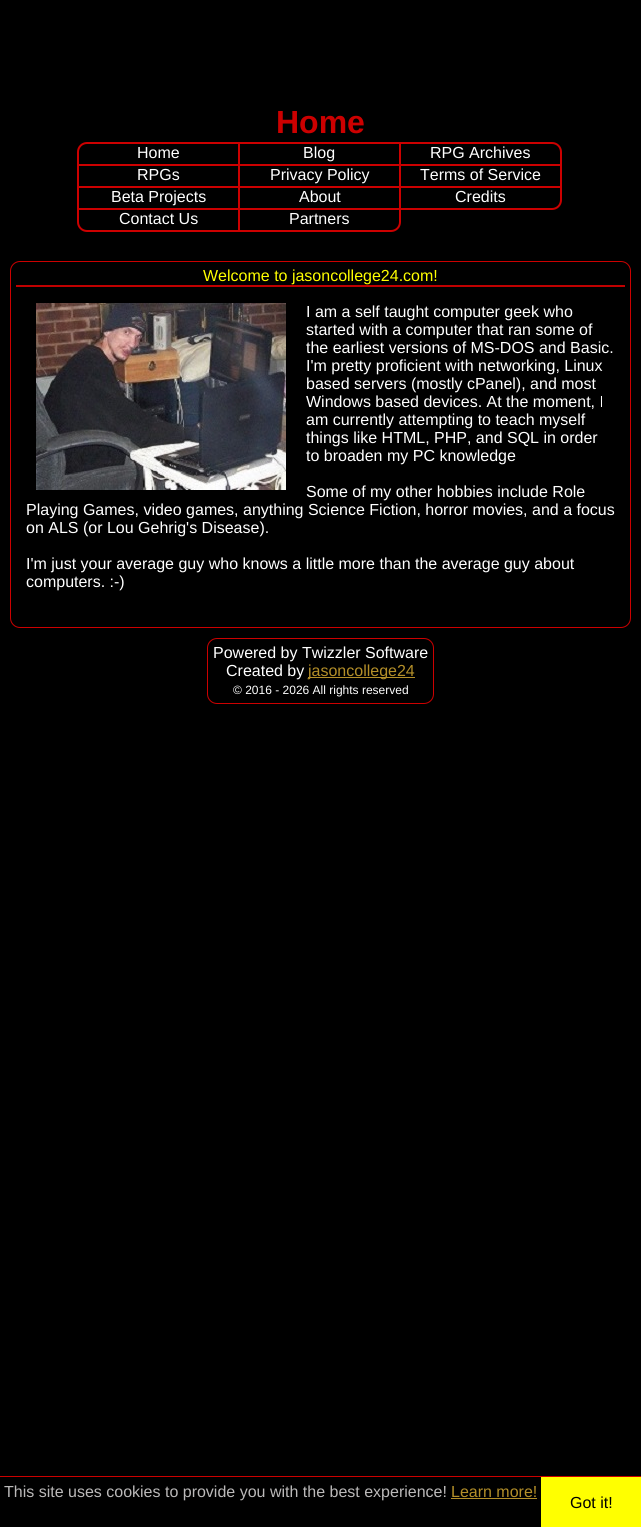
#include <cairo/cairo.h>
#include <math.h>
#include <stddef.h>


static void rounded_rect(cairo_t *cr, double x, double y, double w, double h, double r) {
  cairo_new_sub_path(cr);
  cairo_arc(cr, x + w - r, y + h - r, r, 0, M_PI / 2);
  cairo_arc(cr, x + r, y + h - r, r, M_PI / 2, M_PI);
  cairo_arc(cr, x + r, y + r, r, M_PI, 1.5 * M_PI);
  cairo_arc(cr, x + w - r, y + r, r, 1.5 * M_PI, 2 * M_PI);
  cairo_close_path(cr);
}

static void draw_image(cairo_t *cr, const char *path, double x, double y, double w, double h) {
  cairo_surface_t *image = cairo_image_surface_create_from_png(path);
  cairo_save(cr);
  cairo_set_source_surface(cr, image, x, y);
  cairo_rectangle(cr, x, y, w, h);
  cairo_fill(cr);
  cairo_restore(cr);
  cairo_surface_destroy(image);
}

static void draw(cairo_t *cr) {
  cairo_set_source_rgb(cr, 0, 0, 0);
  cairo_paint(cr);
  cairo_new_path(cr);
  cairo_move_to(cr, 87, 143);
  cairo_line_to(cr, 239, 143);
  cairo_line_to(cr, 239, 165);
  cairo_line_to(cr, 78, 165);
  cairo_line_to(cr, 78, 152);
  cairo_curve_to(cr, 78, 147, 82, 143, 87, 143);
  cairo_close_path(cr);
  cairo_set_source_rgb(cr, 204 / 255.0, 0, 0);
  cairo_stroke(cr);
  cairo_rectangle(cr, 239, 143, 161, 22);
  cairo_stroke(cr);
  cairo_set_source_rgb(cr, 0, 0, 0);
  cairo_new_path(cr);
  cairo_move_to(cr, 400, 143);
  cairo_line_to(cr, 552, 143);
  cairo_curve_to(cr, 557, 143, 561, 147, 561, 152);
  cairo_line_to(cr, 561, 165);
  cairo_line_to(cr, 400, 165);
  cairo_close_path(cr);
  cairo_fill_preserve(cr);
  cairo_set_source_rgb(cr, 204 / 255.0, 0, 0);
  cairo_stroke(cr);
  cairo_rectangle(cr, 78, 165, 161, 22);
  cairo_stroke(cr);
  cairo_rectangle(cr, 239, 165, 161, 22);
  cairo_stroke(cr);
  cairo_rectangle(cr, 400, 165, 161, 22);
  cairo_stroke(cr);
  cairo_rectangle(cr, 78, 187, 161, 22);
  cairo_stroke(cr);
  cairo_rectangle(cr, 239, 187, 161, 22);
  cairo_stroke(cr);
  cairo_set_source_rgb(cr, 0, 0, 0);
  cairo_new_path(cr);
  cairo_move_to(cr, 400, 187);
  cairo_line_to(cr, 561, 187);
  cairo_line_to(cr, 561, 200);
  cairo_curve_to(cr, 561, 205, 557, 209, 552, 209);
  cairo_line_to(cr, 400, 209);
  cairo_close_path(cr);
  cairo_fill_preserve(cr);
  cairo_set_source_rgb(cr, 204 / 255.0, 0, 0);
  cairo_stroke(cr);
  cairo_set_source_rgb(cr, 0, 0, 0);
  cairo_new_path(cr);
  cairo_move_to(cr, 78, 209);
  cairo_line_to(cr, 239, 209);
  cairo_line_to(cr, 239, 231);
  cairo_line_to(cr, 87, 231);
  cairo_curve_to(cr, 82, 231, 78, 227, 78, 222);
  cairo_close_path(cr);
  cairo_fill_preserve(cr);
  cairo_set_source_rgb(cr, 204 / 255.0, 0, 0);
  cairo_stroke(cr);
  cairo_set_source_rgb(cr, 0, 0, 0);
  cairo_new_path(cr);
  cairo_move_to(cr, 239, 209);
  cairo_line_to(cr, 400, 209);
  cairo_line_to(cr, 400, 222);
  cairo_curve_to(cr, 400, 227, 396, 231, 391, 231);
  cairo_line_to(cr, 239, 231);
  cairo_close_path(cr);
  cairo_fill_preserve(cr);
  cairo_set_source_rgb(cr, 204 / 255.0, 0, 0);
  cairo_stroke(cr);
  rounded_rect(cr, 10.5, 261.5, 620, 366, 9.5);
  cairo_set_line_width(cr, 1);
  cairo_stroke(cr);
  cairo_set_source_rgb(cr, 192 / 255.0, 0, 0);
  cairo_rectangle(cr, 16, 285, 609, 2);
  cairo_fill(cr);
  draw_image(cr, "images/1.png", 36, 303, 250, 187);
  rounded_rect(cr, 207.5, 638.5, 226, 65, 9.5);
  cairo_set_source_rgb(cr, 204 / 255.0, 0, 0);
  cairo_stroke(cr);
  cairo_set_source_rgb(cr, 180 / 255.0, 143 / 255.0, 41 / 255.0);
  cairo_rectangle(cr, 308, 677, 107, 1);
  cairo_fill(cr);
  cairo_set_source_rgb(cr, 204 / 255.0, 0, 0);
  cairo_rectangle(cr, 0, 1476, 641, 1);
  cairo_fill(cr);
  cairo_set_source_rgb(cr, 180 / 255.0, 143 / 255.0, 41 / 255.0);
  cairo_rectangle(cr, 451, 1498, 86, 1);
  cairo_fill(cr);
  cairo_set_source_rgb(cr, 1, 1, 0);
  cairo_rectangle(cr, 541, 1477, 100, 50);
  cairo_fill(cr);
  cairo_select_font_face(cr, "Liberation Sans", CAIRO_FONT_SLANT_NORMAL, CAIRO_FONT_WEIGHT_BOLD);
  cairo_set_font_size(cr, 32);
  cairo_set_source_rgb(cr, 204 / 255.0, 0, 0);
  cairo_move_to(cr, 276, 133);
  cairo_show_text(cr, "Home");
  cairo_select_font_face(cr, "Liberation Sans", CAIRO_FONT_SLANT_NORMAL, CAIRO_FONT_WEIGHT_NORMAL);
  cairo_set_font_size(cr, 16);
  cairo_set_source_rgb(cr, 1, 1, 1);
  cairo_move_to(cr, 137, 158);
  cairo_show_text(cr, "Home");
  cairo_move_to(cr, 303, 158);
  cairo_show_text(cr, "Blog");
  cairo_move_to(cr, 430, 158);
  cairo_show_text(cr, "RPG Archives");
  cairo_move_to(cr, 137, 180);
  cairo_show_text(cr, "RPGs");
  cairo_move_to(cr, 270, 180);
  cairo_show_text(cr, "Privacy Policy");
  cairo_move_to(cr, 420, 180);
  cairo_show_text(cr, "Terms of Service");
  cairo_move_to(cr, 111, 202);
  cairo_show_text(cr, "Beta Projects");
  cairo_move_to(cr, 299, 202);
  cairo_show_text(cr, "About");
  cairo_move_to(cr, 455, 202);
  cairo_show_text(cr, "Credits");
  cairo_move_to(cr, 119, 224);
  cairo_show_text(cr, "Contact Us");
  cairo_move_to(cr, 289, 224);
  cairo_show_text(cr, "Partners");
  cairo_set_source_rgb(cr, 1, 1, 0);
  cairo_move_to(cr, 203, 281);
  cairo_show_text(cr, "Welcome to jasoncollege24.com!");
  cairo_set_source_rgb(cr, 1, 1, 1);
  cairo_move_to(cr, 306, 317);
  cairo_show_text(cr, "I am a self taught computer geek who");
  cairo_move_to(cr, 306, 335);
  cairo_show_text(cr, "started with a computer that ran some of");
  cairo_move_to(cr, 306, 353);
  cairo_show_text(cr, "the earliest versions of MS-DOS and Basic.");
  cairo_move_to(cr, 306, 371);
  cairo_show_text(cr, "I'm pretty proficient with networking, Linux");
  cairo_move_to(cr, 306, 389);
  cairo_show_text(cr, "based servers (mostly cPanel), and most");
  cairo_move_to(cr, 306, 407);
  cairo_show_text(cr, "Windows based devices. At the moment, I");
  cairo_move_to(cr, 306, 425);
  cairo_show_text(cr, "am currently attempting to teach myself");
  cairo_move_to(cr, 306, 443);
  cairo_show_text(cr, "things like HTML, PHP, and SQL in order");
  cairo_move_to(cr, 306, 461);
  cairo_show_text(cr, "to broaden my PC knowledge");
  cairo_move_to(cr, 306, 497);
  cairo_show_text(cr, "Some of my other hobbies include Role");
  cairo_move_to(cr, 26, 515);
  cairo_show_text(cr, "Playing Games, video games, anything Science Fiction, horror movies, and a focus");
  cairo_move_to(cr, 26, 533);
  cairo_show_text(cr, "on ALS (or Lou Gehrig's Disease).");
  cairo_move_to(cr, 26, 569);
  cairo_show_text(cr, "I'm just your average guy who knows a little more than the average guy about");
  cairo_move_to(cr, 26, 587);
  cairo_show_text(cr, "computers. :-)");
  cairo_move_to(cr, 213, 658);
  cairo_show_text(cr, "Powered by Twizzler Software");
  cairo_move_to(cr, 226, 676);
  cairo_show_text(cr, "Created by");
  cairo_set_source_rgb(cr, 180 / 255.0, 143 / 255.0, 41 / 255.0);
  cairo_move_to(cr, 308, 676);
  cairo_show_text(cr, "jasoncollege24");
  cairo_set_font_size(cr, 12);
  cairo_set_source_rgb(cr, 1, 1, 1);
  cairo_move_to(cr, 233, 694);
  cairo_show_text(cr, "© 2016 - 2026 All rights reserved");
  cairo_set_font_size(cr, 16);
  cairo_set_source_rgb(cr, 187 / 255.0, 185 / 255.0, 185 / 255.0);
  cairo_move_to(cr, 4, 1497);
  cairo_show_text(cr, "This site uses cookies to provide you with the best experience!");
  cairo_set_source_rgb(cr, 180 / 255.0, 143 / 255.0, 41 / 255.0);
  cairo_move_to(cr, 451, 1497);
  cairo_show_text(cr, "Learn more!");
  cairo_set_source_rgb(cr, 0, 0, 0);
  cairo_move_to(cr, 570, 1508);
  cairo_show_text(cr, "Got it!");
}

int main(void) {
  cairo_surface_t *surface = cairo_image_surface_create(CAIRO_FORMAT_RGB24, 641, 1527);
  cairo_t *cr = cairo_create(surface);
  cairo_font_options_t *options = cairo_font_options_create();
  cairo_font_options_set_hint_metrics(options, CAIRO_HINT_METRICS_OFF);
  cairo_font_options_set_hint_style(options, CAIRO_HINT_STYLE_NONE);
  cairo_set_font_options(cr, options);
  cairo_set_miter_limit(cr, 4);
  draw(cr);
  cairo_surface_write_to_png(surface, "out.png");
  cairo_font_options_destroy(options);
  cairo_destroy(cr);
  cairo_surface_destroy(surface);
  return 0;
}
